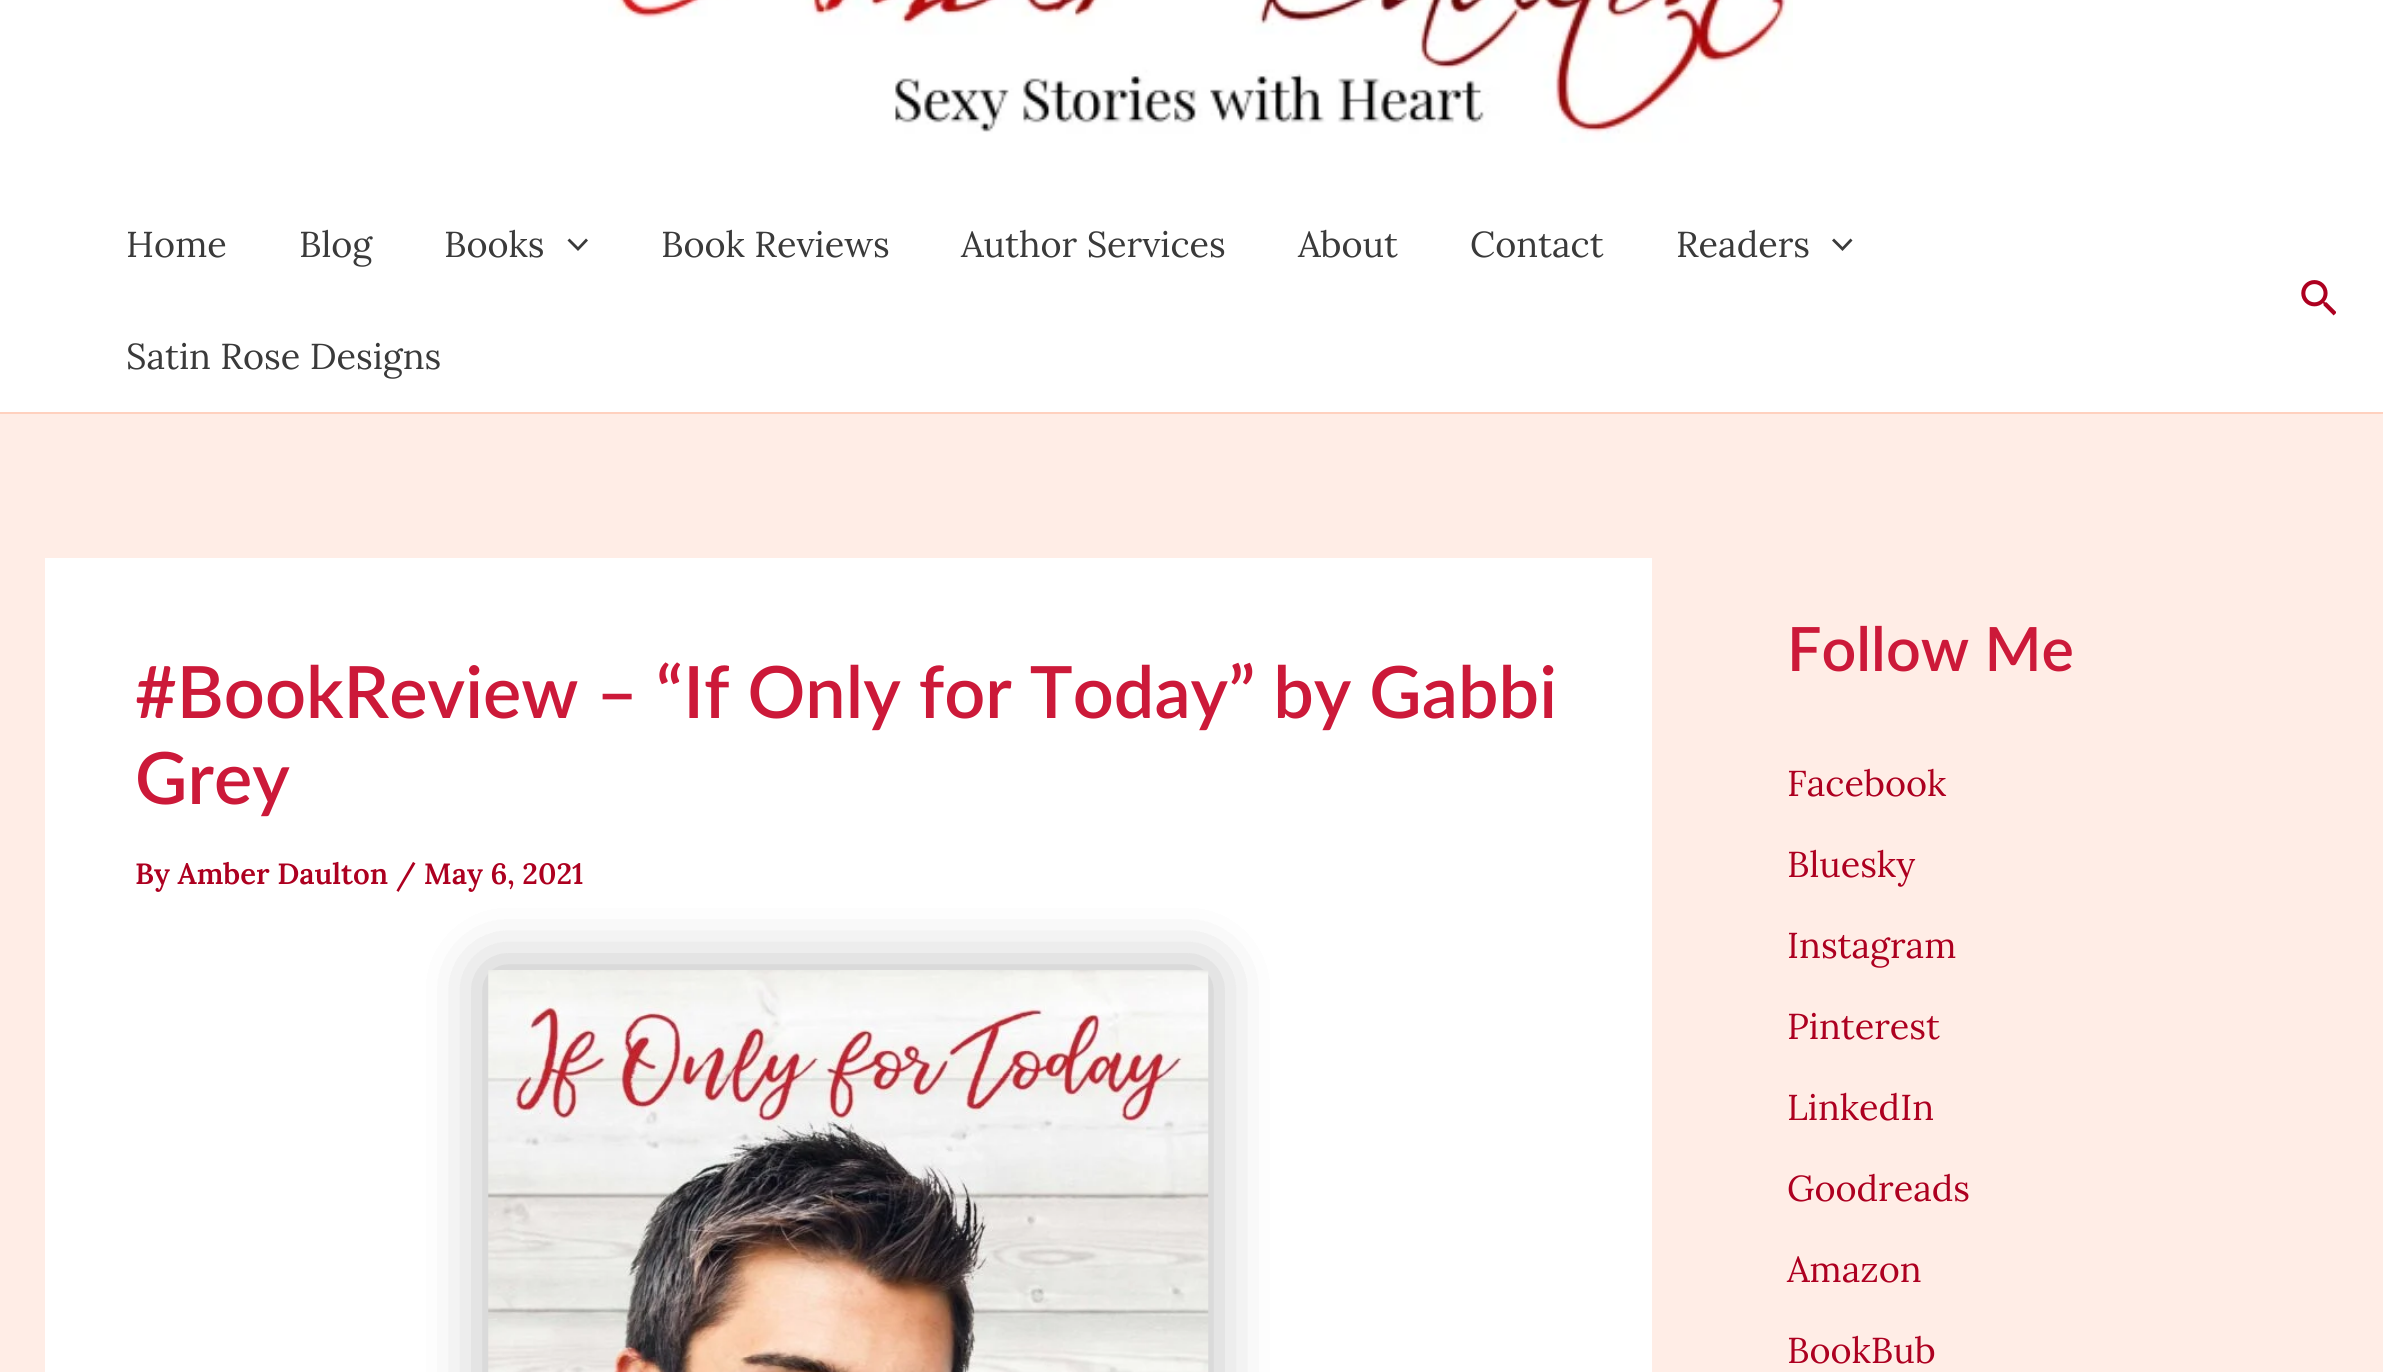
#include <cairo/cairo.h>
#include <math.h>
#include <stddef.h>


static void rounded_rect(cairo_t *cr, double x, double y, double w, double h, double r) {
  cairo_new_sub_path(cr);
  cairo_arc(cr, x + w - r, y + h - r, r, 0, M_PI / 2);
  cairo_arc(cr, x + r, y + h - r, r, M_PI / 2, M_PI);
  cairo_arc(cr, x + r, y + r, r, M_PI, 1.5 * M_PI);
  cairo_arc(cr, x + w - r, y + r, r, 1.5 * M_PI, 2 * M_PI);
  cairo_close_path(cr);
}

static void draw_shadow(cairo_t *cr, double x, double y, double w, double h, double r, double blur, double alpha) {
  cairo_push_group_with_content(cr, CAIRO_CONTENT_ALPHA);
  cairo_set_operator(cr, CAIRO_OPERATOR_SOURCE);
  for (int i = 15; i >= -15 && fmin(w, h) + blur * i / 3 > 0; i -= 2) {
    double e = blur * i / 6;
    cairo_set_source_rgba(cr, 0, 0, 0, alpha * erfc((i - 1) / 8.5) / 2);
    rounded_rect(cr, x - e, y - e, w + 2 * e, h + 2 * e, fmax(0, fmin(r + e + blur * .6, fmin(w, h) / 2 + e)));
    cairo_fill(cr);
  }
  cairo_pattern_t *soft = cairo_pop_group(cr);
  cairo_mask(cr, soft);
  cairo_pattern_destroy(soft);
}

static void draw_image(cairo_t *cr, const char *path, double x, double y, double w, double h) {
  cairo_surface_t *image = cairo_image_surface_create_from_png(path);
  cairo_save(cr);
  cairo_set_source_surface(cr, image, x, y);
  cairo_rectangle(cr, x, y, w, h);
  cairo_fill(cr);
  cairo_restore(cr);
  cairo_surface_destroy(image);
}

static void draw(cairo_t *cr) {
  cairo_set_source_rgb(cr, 1, 237 / 255.0, 230 / 255.0);
  cairo_paint(cr);
  cairo_set_source_rgb(cr, 1, 1, 1);
  cairo_rectangle(cr, 0, 0, 2383, 412);
  cairo_fill(cr);
  draw_image(cr, "images/1.png", 608, 0, 1185, 143);
  cairo_set_source_rgb(cr, 1, 209 / 255.0, 191 / 255.0);
  cairo_rectangle(cr, 0, 412, 2383, 2);
  cairo_fill(cr);
  cairo_set_source_rgb(cr, 58 / 255.0, 58 / 255.0, 58 / 255.0);
  cairo_new_path(cr);
  cairo_move_to(cr, 567.5, 240.5);
  cairo_line_to(cr, 578, 251);
  cairo_line_to(cr, 588, 240.5);
  cairo_line_to(cr, 586, 238.5);
  cairo_line_to(cr, 578, 247);
  cairo_line_to(cr, 569.5, 238.5);
  cairo_close_path(cr);
  cairo_fill(cr);
  cairo_new_path(cr);
  cairo_move_to(cr, 1832, 240.5);
  cairo_line_to(cr, 1842.5, 251);
  cairo_line_to(cr, 1852.5, 240.5);
  cairo_line_to(cr, 1850.5, 238.5);
  cairo_line_to(cr, 1842.5, 247);
  cairo_line_to(cr, 1834, 238.5);
  cairo_close_path(cr);
  cairo_fill(cr);
  draw_image(cr, "images/2.png", 2301, 280, 35, 36);
  cairo_set_source_rgb(cr, 1, 1, 1);
  cairo_rectangle(cr, 45, 558, 1607, 814);
  cairo_fill(cr);
  cairo_set_source_rgb(cr, 0, 0, 0);
  draw_shadow(cr, 488, 970, 720, 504, 0, 34, 0.15);
  draw_shadow(cr, 488, 970, 720, 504, 0, 34, 0.15);
  draw_image(cr, "images/3.png", 488, 970, 721, 402);
  cairo_select_font_face(cr, "Lora", CAIRO_FONT_SLANT_NORMAL, CAIRO_FONT_WEIGHT_NORMAL);
  cairo_set_font_size(cr, 36);
  cairo_set_source_rgb(cr, 58 / 255.0, 58 / 255.0, 58 / 255.0);
  cairo_move_to(cr, 126, 257);
  cairo_show_text(cr, "Home");
  cairo_move_to(cr, 299, 257);
  cairo_show_text(cr, "Blog");
  cairo_move_to(cr, 444, 257);
  cairo_show_text(cr, "Books");
  cairo_move_to(cr, 661, 257);
  cairo_show_text(cr, "Book Reviews");
  cairo_move_to(cr, 961, 257);
  cairo_show_text(cr, "Author Services");
  cairo_move_to(cr, 1298, 257);
  cairo_show_text(cr, "About");
  cairo_move_to(cr, 1470, 257);
  cairo_show_text(cr, "Contact");
  cairo_move_to(cr, 1676, 257);
  cairo_show_text(cr, "Readers");
  cairo_move_to(cr, 126, 369);
  cairo_show_text(cr, "Satin Rose Designs");
  cairo_select_font_face(cr, "Lato SemiBold", CAIRO_FONT_SLANT_NORMAL, CAIRO_FONT_WEIGHT_NORMAL);
  cairo_set_font_size(cr, 72);
  cairo_set_source_rgb(cr, 204 / 255.0, 25 / 255.0, 57 / 255.0);
  cairo_move_to(cr, 135, 718);
  cairo_show_text(cr, "#BookReview – “If Only for Today” by Gabbi");
  cairo_move_to(cr, 135, 804);
  cairo_show_text(cr, "Grey");
  cairo_select_font_face(cr, "Lora SemiBold", CAIRO_FONT_SLANT_NORMAL, CAIRO_FONT_WEIGHT_NORMAL);
  cairo_set_font_size(cr, 29.25);
  cairo_set_source_rgb(cr, 173 / 255.0, 0, 32 / 255.0);
  cairo_move_to(cr, 135, 884);
  cairo_show_text(cr, "By Amber Daulton / May 6, 2021");
  cairo_select_font_face(cr, "Lato SemiBold", CAIRO_FONT_SLANT_NORMAL, CAIRO_FONT_WEIGHT_NORMAL);
  cairo_set_font_size(cr, 61);
  cairo_set_source_rgb(cr, 204 / 255.0, 25 / 255.0, 57 / 255.0);
  cairo_move_to(cr, 1787, 671);
  cairo_show_text(cr, "Follow Me");
  cairo_select_font_face(cr, "Lora", CAIRO_FONT_SLANT_NORMAL, CAIRO_FONT_WEIGHT_NORMAL);
  cairo_set_font_size(cr, 36);
  cairo_set_source_rgb(cr, 173 / 255.0, 0, 32 / 255.0);
  cairo_move_to(cr, 1787, 796);
  cairo_show_text(cr, "Facebook");
  cairo_move_to(cr, 1787, 877);
  cairo_show_text(cr, "Bluesky");
  cairo_move_to(cr, 1787, 958);
  cairo_show_text(cr, "Instagram");
  cairo_move_to(cr, 1787, 1039);
  cairo_show_text(cr, "Pinterest");
  cairo_move_to(cr, 1787, 1120);
  cairo_show_text(cr, "LinkedIn");
  cairo_move_to(cr, 1787, 1201);
  cairo_show_text(cr, "Goodreads");
  cairo_move_to(cr, 1787, 1282);
  cairo_show_text(cr, "Amazon");
  cairo_move_to(cr, 1787, 1363);
  cairo_show_text(cr, "BookBub");
}

int main(void) {
  cairo_surface_t *surface = cairo_image_surface_create(CAIRO_FORMAT_RGB24, 2383, 1372);
  cairo_t *cr = cairo_create(surface);
  cairo_font_options_t *options = cairo_font_options_create();
  cairo_font_options_set_hint_metrics(options, CAIRO_HINT_METRICS_OFF);
  cairo_font_options_set_hint_style(options, CAIRO_HINT_STYLE_NONE);
  cairo_set_font_options(cr, options);
  cairo_set_miter_limit(cr, 4);
  draw(cr);
  cairo_surface_write_to_png(surface, "out.png");
  cairo_font_options_destroy(options);
  cairo_destroy(cr);
  cairo_surface_destroy(surface);
  return 0;
}
